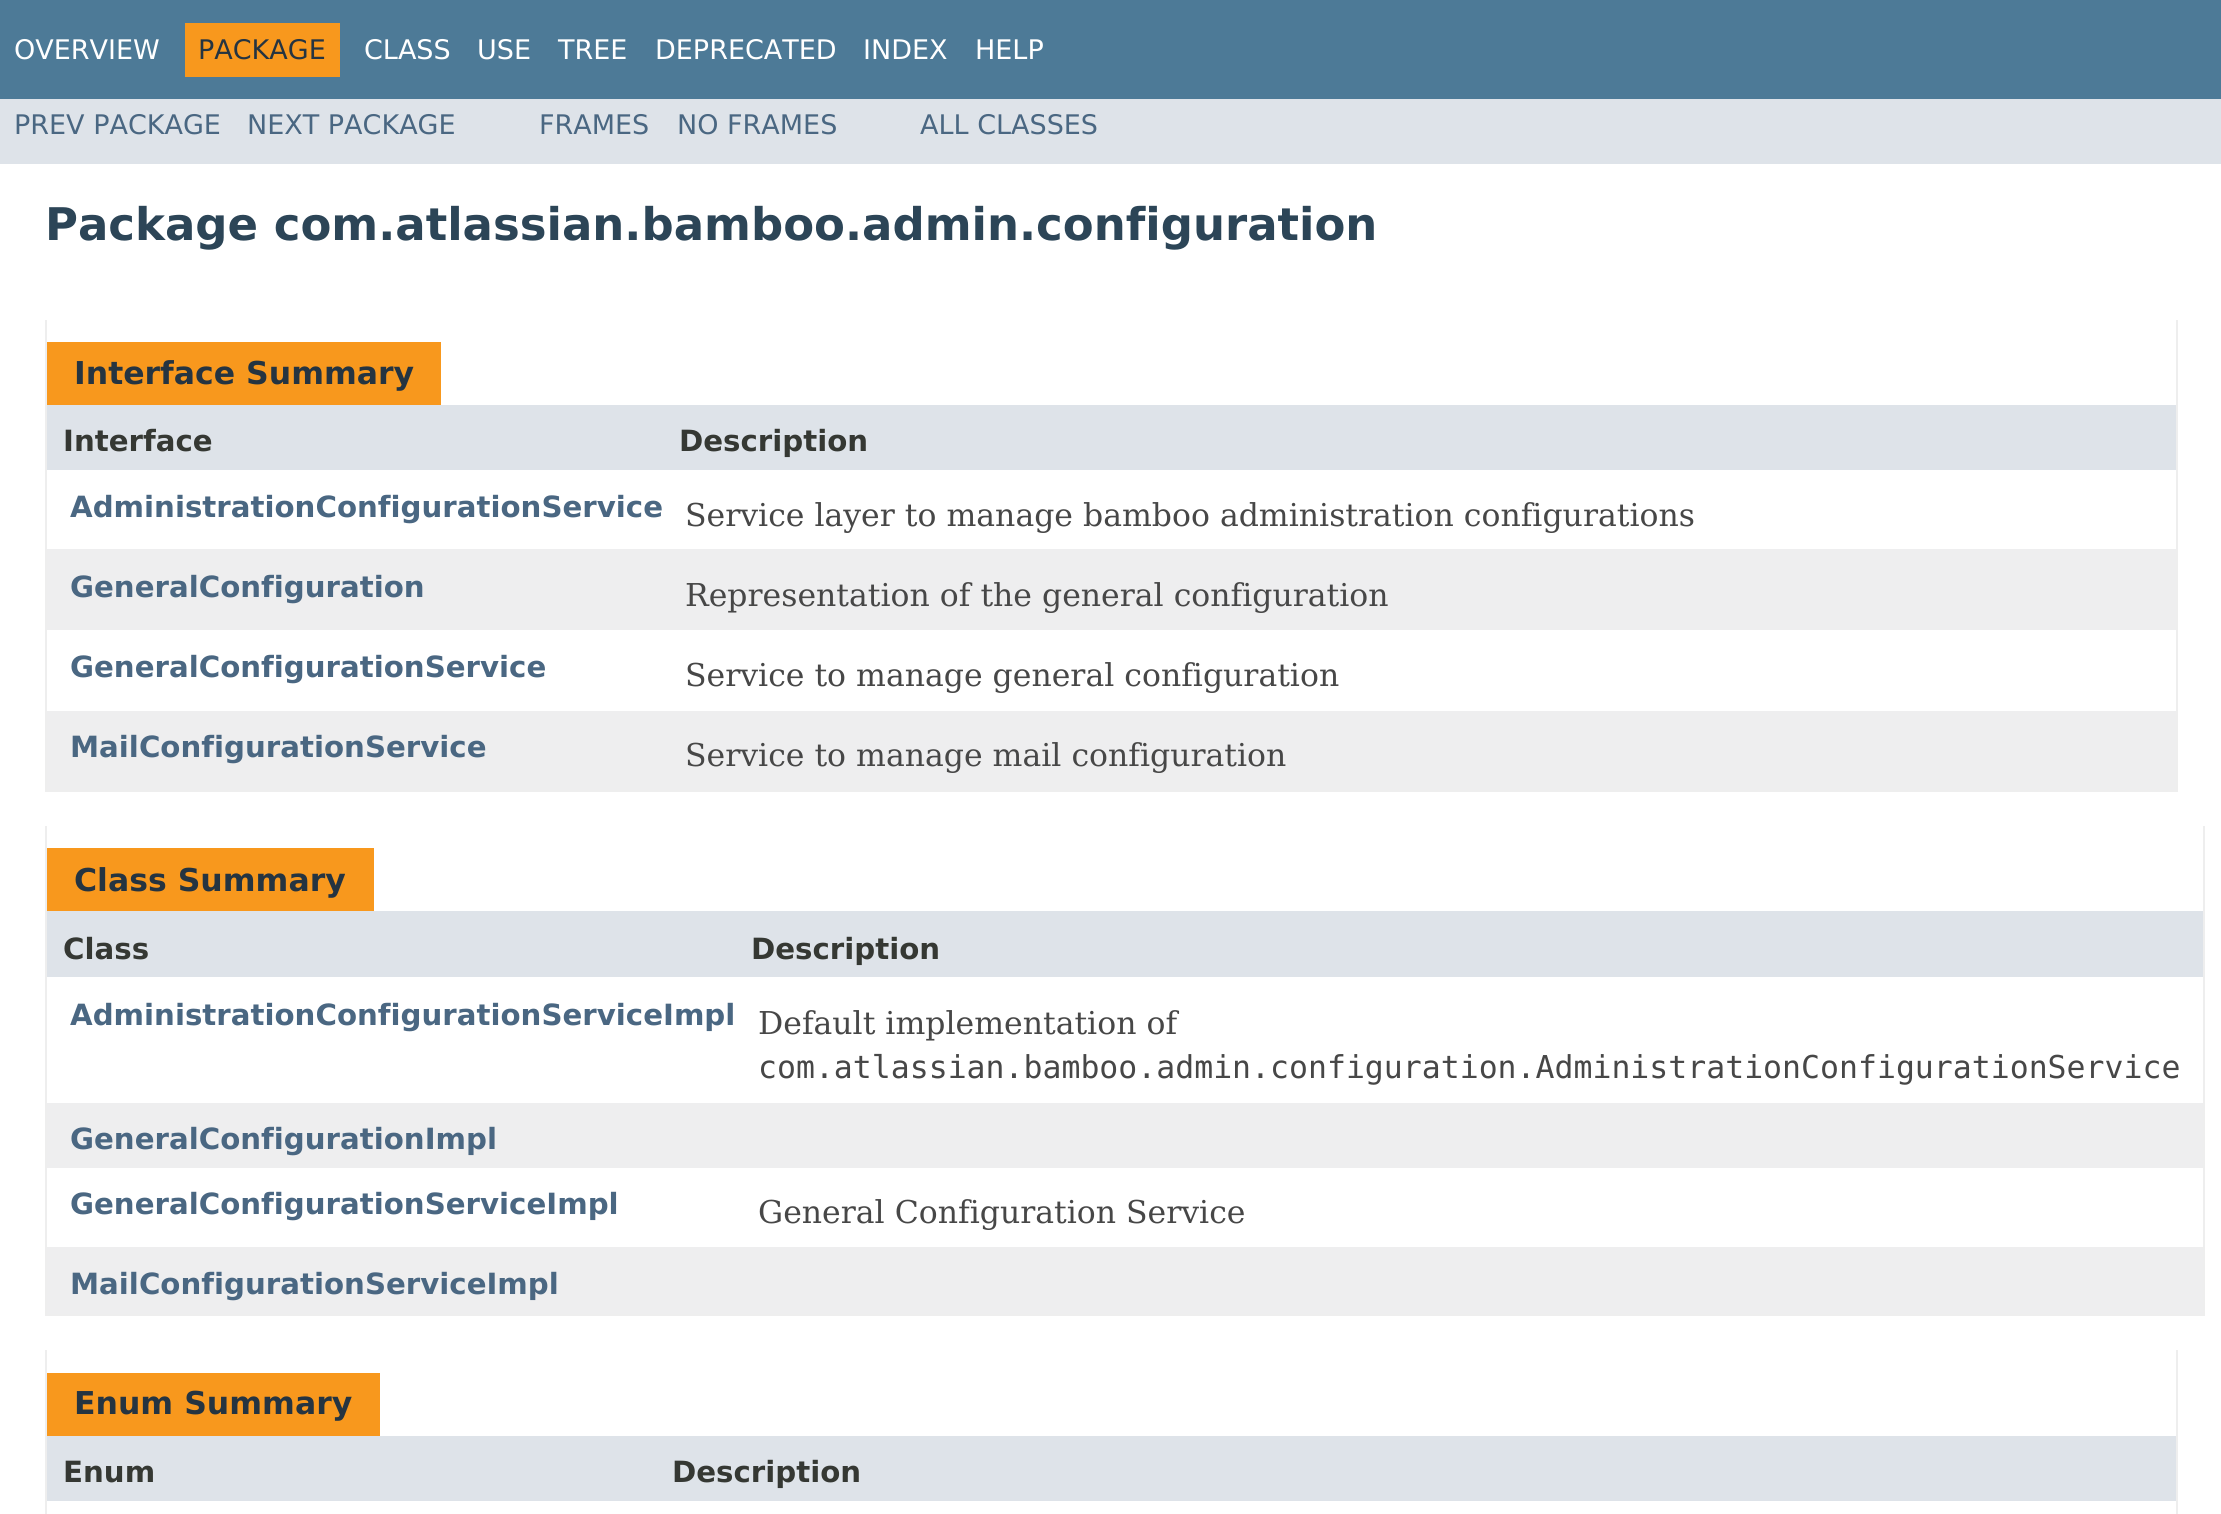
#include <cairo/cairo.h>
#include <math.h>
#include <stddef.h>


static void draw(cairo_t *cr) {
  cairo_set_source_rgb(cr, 1, 1, 1);
  cairo_paint(cr);
  cairo_set_source_rgb(cr, 77 / 255.0, 122 / 255.0, 151 / 255.0);
  cairo_rectangle(cr, 0, 0, 2221, 99);
  cairo_fill(cr);
  cairo_set_source_rgb(cr, 248 / 255.0, 152 / 255.0, 29 / 255.0);
  cairo_rectangle(cr, 185, 23, 155, 54);
  cairo_fill(cr);
  cairo_set_source_rgb(cr, 222 / 255.0, 227 / 255.0, 233 / 255.0);
  cairo_rectangle(cr, 0, 99, 2221, 65);
  cairo_fill(cr);
  cairo_set_source_rgb(cr, 238 / 255.0, 238 / 255.0, 238 / 255.0);
  cairo_rectangle(cr, 2176, 320, 2, 472);
  cairo_fill(cr);
  cairo_rectangle(cr, 45, 790, 2133, 2);
  cairo_fill(cr);
  cairo_rectangle(cr, 45, 320, 2, 472);
  cairo_fill(cr);
  cairo_set_source_rgb(cr, 248 / 255.0, 152 / 255.0, 29 / 255.0);
  cairo_rectangle(cr, 47, 342, 394, 63);
  cairo_fill(cr);
  cairo_set_source_rgb(cr, 222 / 255.0, 227 / 255.0, 233 / 255.0);
  cairo_rectangle(cr, 47, 405, 2129, 65);
  cairo_fill(cr);
  cairo_set_source_rgb(cr, 238 / 255.0, 238 / 255.0, 239 / 255.0);
  cairo_rectangle(cr, 47, 549, 2129, 81);
  cairo_fill(cr);
  cairo_rectangle(cr, 47, 711, 2129, 79);
  cairo_fill(cr);
  cairo_set_source_rgb(cr, 238 / 255.0, 238 / 255.0, 238 / 255.0);
  cairo_rectangle(cr, 2203, 826, 2, 490);
  cairo_fill(cr);
  cairo_rectangle(cr, 45, 1314, 2160, 2);
  cairo_fill(cr);
  cairo_rectangle(cr, 45, 826, 2, 490);
  cairo_fill(cr);
  cairo_set_source_rgb(cr, 248 / 255.0, 152 / 255.0, 29 / 255.0);
  cairo_rectangle(cr, 47, 848, 327, 63);
  cairo_fill(cr);
  cairo_set_source_rgb(cr, 222 / 255.0, 227 / 255.0, 233 / 255.0);
  cairo_rectangle(cr, 47, 911, 2156, 66);
  cairo_fill(cr);
  cairo_set_source_rgb(cr, 238 / 255.0, 238 / 255.0, 239 / 255.0);
  cairo_rectangle(cr, 47, 1103, 2156, 65);
  cairo_fill(cr);
  cairo_rectangle(cr, 47, 1247, 2156, 67);
  cairo_fill(cr);
  cairo_set_source_rgb(cr, 238 / 255.0, 238 / 255.0, 238 / 255.0);
  cairo_rectangle(cr, 2176, 1350, 2, 164);
  cairo_fill(cr);
  cairo_rectangle(cr, 45, 1350, 2, 164);
  cairo_fill(cr);
  cairo_set_source_rgb(cr, 248 / 255.0, 152 / 255.0, 29 / 255.0);
  cairo_rectangle(cr, 47, 1373, 333, 63);
  cairo_fill(cr);
  cairo_set_source_rgb(cr, 222 / 255.0, 227 / 255.0, 233 / 255.0);
  cairo_rectangle(cr, 47, 1436, 2129, 65);
  cairo_fill(cr);
  cairo_select_font_face(cr, "DejaVu Sans", CAIRO_FONT_SLANT_NORMAL, CAIRO_FONT_WEIGHT_NORMAL);
  cairo_set_font_size(cr, 27);
  cairo_set_source_rgb(cr, 1, 1, 1);
  cairo_move_to(cr, 14, 59);
  cairo_show_text(cr, "OVERVIEW");
  cairo_set_source_rgb(cr, 37 / 255.0, 52 / 255.0, 65 / 255.0);
  cairo_move_to(cr, 198, 59);
  cairo_show_text(cr, "PACKAGE");
  cairo_set_source_rgb(cr, 1, 1, 1);
  cairo_move_to(cr, 364, 59);
  cairo_show_text(cr, "CLASS");
  cairo_move_to(cr, 477, 59);
  cairo_show_text(cr, "USE");
  cairo_move_to(cr, 558, 59);
  cairo_show_text(cr, "TREE");
  cairo_move_to(cr, 655, 59);
  cairo_show_text(cr, "DEPRECATED");
  cairo_move_to(cr, 863, 59);
  cairo_show_text(cr, "INDEX");
  cairo_move_to(cr, 975, 59);
  cairo_show_text(cr, "HELP");
  cairo_set_source_rgb(cr, 74 / 255.0, 103 / 255.0, 130 / 255.0);
  cairo_move_to(cr, 14, 134);
  cairo_show_text(cr, "PREV PACKAGE");
  cairo_move_to(cr, 247, 134);
  cairo_show_text(cr, "NEXT PACKAGE");
  cairo_move_to(cr, 539, 134);
  cairo_show_text(cr, "FRAMES");
  cairo_move_to(cr, 677, 134);
  cairo_show_text(cr, "NO FRAMES");
  cairo_move_to(cr, 920, 134);
  cairo_show_text(cr, "ALL CLASSES");
  cairo_select_font_face(cr, "DejaVu Sans", CAIRO_FONT_SLANT_NORMAL, CAIRO_FONT_WEIGHT_BOLD);
  cairo_set_font_size(cr, 45);
  cairo_set_source_rgb(cr, 44 / 255.0, 69 / 255.0, 87 / 255.0);
  cairo_move_to(cr, 45, 240);
  cairo_show_text(cr, "Package com.atlassian.bamboo.admin.configuration");
  cairo_set_font_size(cr, 31.5);
  cairo_set_source_rgb(cr, 37 / 255.0, 52 / 255.0, 65 / 255.0);
  cairo_move_to(cr, 74, 384);
  cairo_show_text(cr, "Interface Summary");
  cairo_set_font_size(cr, 29.25);
  cairo_set_source_rgb(cr, 53 / 255.0, 56 / 255.0, 51 / 255.0);
  cairo_move_to(cr, 63, 451);
  cairo_show_text(cr, "Interface");
  cairo_move_to(cr, 679, 451);
  cairo_show_text(cr, "Description");
  cairo_set_source_rgb(cr, 74 / 255.0, 103 / 255.0, 130 / 255.0);
  cairo_move_to(cr, 70, 517);
  cairo_show_text(cr, "AdministrationConfigurationService");
  cairo_select_font_face(cr, "DejaVu Serif", CAIRO_FONT_SLANT_NORMAL, CAIRO_FONT_WEIGHT_NORMAL);
  cairo_set_font_size(cr, 31.5);
  cairo_set_source_rgb(cr, 71 / 255.0, 71 / 255.0, 71 / 255.0);
  cairo_move_to(cr, 685, 526);
  cairo_show_text(cr, "Service layer to manage bamboo administration configurations");
  cairo_select_font_face(cr, "DejaVu Sans", CAIRO_FONT_SLANT_NORMAL, CAIRO_FONT_WEIGHT_BOLD);
  cairo_set_font_size(cr, 29.25);
  cairo_set_source_rgb(cr, 74 / 255.0, 103 / 255.0, 130 / 255.0);
  cairo_move_to(cr, 70, 597);
  cairo_show_text(cr, "GeneralConfiguration");
  cairo_select_font_face(cr, "DejaVu Serif", CAIRO_FONT_SLANT_NORMAL, CAIRO_FONT_WEIGHT_NORMAL);
  cairo_set_font_size(cr, 31.5);
  cairo_set_source_rgb(cr, 71 / 255.0, 71 / 255.0, 71 / 255.0);
  cairo_move_to(cr, 685, 606);
  cairo_show_text(cr, "Representation of the general configuration");
  cairo_select_font_face(cr, "DejaVu Sans", CAIRO_FONT_SLANT_NORMAL, CAIRO_FONT_WEIGHT_BOLD);
  cairo_set_font_size(cr, 29.25);
  cairo_set_source_rgb(cr, 74 / 255.0, 103 / 255.0, 130 / 255.0);
  cairo_move_to(cr, 70, 677);
  cairo_show_text(cr, "GeneralConfigurationService");
  cairo_select_font_face(cr, "DejaVu Serif", CAIRO_FONT_SLANT_NORMAL, CAIRO_FONT_WEIGHT_NORMAL);
  cairo_set_font_size(cr, 31.5);
  cairo_set_source_rgb(cr, 71 / 255.0, 71 / 255.0, 71 / 255.0);
  cairo_move_to(cr, 685, 686);
  cairo_show_text(cr, "Service to manage general configuration");
  cairo_select_font_face(cr, "DejaVu Sans", CAIRO_FONT_SLANT_NORMAL, CAIRO_FONT_WEIGHT_BOLD);
  cairo_set_font_size(cr, 29.25);
  cairo_set_source_rgb(cr, 74 / 255.0, 103 / 255.0, 130 / 255.0);
  cairo_move_to(cr, 70, 757);
  cairo_show_text(cr, "MailConfigurationService");
  cairo_select_font_face(cr, "DejaVu Serif", CAIRO_FONT_SLANT_NORMAL, CAIRO_FONT_WEIGHT_NORMAL);
  cairo_set_font_size(cr, 31.5);
  cairo_set_source_rgb(cr, 71 / 255.0, 71 / 255.0, 71 / 255.0);
  cairo_move_to(cr, 685, 766);
  cairo_show_text(cr, "Service to manage mail configuration");
  cairo_select_font_face(cr, "DejaVu Sans", CAIRO_FONT_SLANT_NORMAL, CAIRO_FONT_WEIGHT_BOLD);
  cairo_set_source_rgb(cr, 37 / 255.0, 52 / 255.0, 65 / 255.0);
  cairo_move_to(cr, 74, 891);
  cairo_show_text(cr, "Class Summary");
  cairo_set_font_size(cr, 29.25);
  cairo_set_source_rgb(cr, 53 / 255.0, 56 / 255.0, 51 / 255.0);
  cairo_move_to(cr, 63, 959);
  cairo_show_text(cr, "Class");
  cairo_move_to(cr, 751, 959);
  cairo_show_text(cr, "Description");
  cairo_set_source_rgb(cr, 74 / 255.0, 103 / 255.0, 130 / 255.0);
  cairo_move_to(cr, 70, 1025);
  cairo_show_text(cr, "AdministrationConfigurationServiceImpl");
  cairo_select_font_face(cr, "DejaVu Serif", CAIRO_FONT_SLANT_NORMAL, CAIRO_FONT_WEIGHT_NORMAL);
  cairo_set_font_size(cr, 31.5);
  cairo_set_source_rgb(cr, 71 / 255.0, 71 / 255.0, 71 / 255.0);
  cairo_move_to(cr, 758, 1034);
  cairo_show_text(cr, "Default implementation of");
  cairo_select_font_face(cr, "DejaVu Sans Mono", CAIRO_FONT_SLANT_NORMAL, CAIRO_FONT_WEIGHT_NORMAL);
  cairo_move_to(cr, 758, 1078);
  cairo_show_text(cr, "com.atlassian.bamboo.admin.configuration.AdministrationConfigurationService");
  cairo_select_font_face(cr, "DejaVu Sans", CAIRO_FONT_SLANT_NORMAL, CAIRO_FONT_WEIGHT_BOLD);
  cairo_set_font_size(cr, 29.25);
  cairo_set_source_rgb(cr, 74 / 255.0, 103 / 255.0, 130 / 255.0);
  cairo_move_to(cr, 70, 1149);
  cairo_show_text(cr, "GeneralConfigurationImpl");
  cairo_move_to(cr, 70, 1214);
  cairo_show_text(cr, "GeneralConfigurationServiceImpl");
  cairo_select_font_face(cr, "DejaVu Serif", CAIRO_FONT_SLANT_NORMAL, CAIRO_FONT_WEIGHT_NORMAL);
  cairo_set_font_size(cr, 31.5);
  cairo_set_source_rgb(cr, 71 / 255.0, 71 / 255.0, 71 / 255.0);
  cairo_move_to(cr, 758, 1223);
  cairo_show_text(cr, "General Configuration Service");
  cairo_select_font_face(cr, "DejaVu Sans", CAIRO_FONT_SLANT_NORMAL, CAIRO_FONT_WEIGHT_BOLD);
  cairo_set_font_size(cr, 29.25);
  cairo_set_source_rgb(cr, 74 / 255.0, 103 / 255.0, 130 / 255.0);
  cairo_move_to(cr, 70, 1294);
  cairo_show_text(cr, "MailConfigurationServiceImpl");
  cairo_set_font_size(cr, 31.5);
  cairo_set_source_rgb(cr, 37 / 255.0, 52 / 255.0, 65 / 255.0);
  cairo_move_to(cr, 74, 1414);
  cairo_show_text(cr, "Enum Summary");
  cairo_set_font_size(cr, 29.25);
  cairo_set_source_rgb(cr, 53 / 255.0, 56 / 255.0, 51 / 255.0);
  cairo_move_to(cr, 63, 1482);
  cairo_show_text(cr, "Enum");
  cairo_move_to(cr, 672, 1482);
  cairo_show_text(cr, "Description");
}

int main(void) {
  cairo_surface_t *surface = cairo_image_surface_create(CAIRO_FORMAT_RGB24, 2221, 1514);
  cairo_t *cr = cairo_create(surface);
  cairo_font_options_t *options = cairo_font_options_create();
  cairo_font_options_set_hint_metrics(options, CAIRO_HINT_METRICS_OFF);
  cairo_font_options_set_hint_style(options, CAIRO_HINT_STYLE_NONE);
  cairo_set_font_options(cr, options);
  cairo_set_miter_limit(cr, 4);
  draw(cr);
  cairo_surface_write_to_png(surface, "out.png");
  cairo_font_options_destroy(options);
  cairo_destroy(cr);
  cairo_surface_destroy(surface);
  return 0;
}
